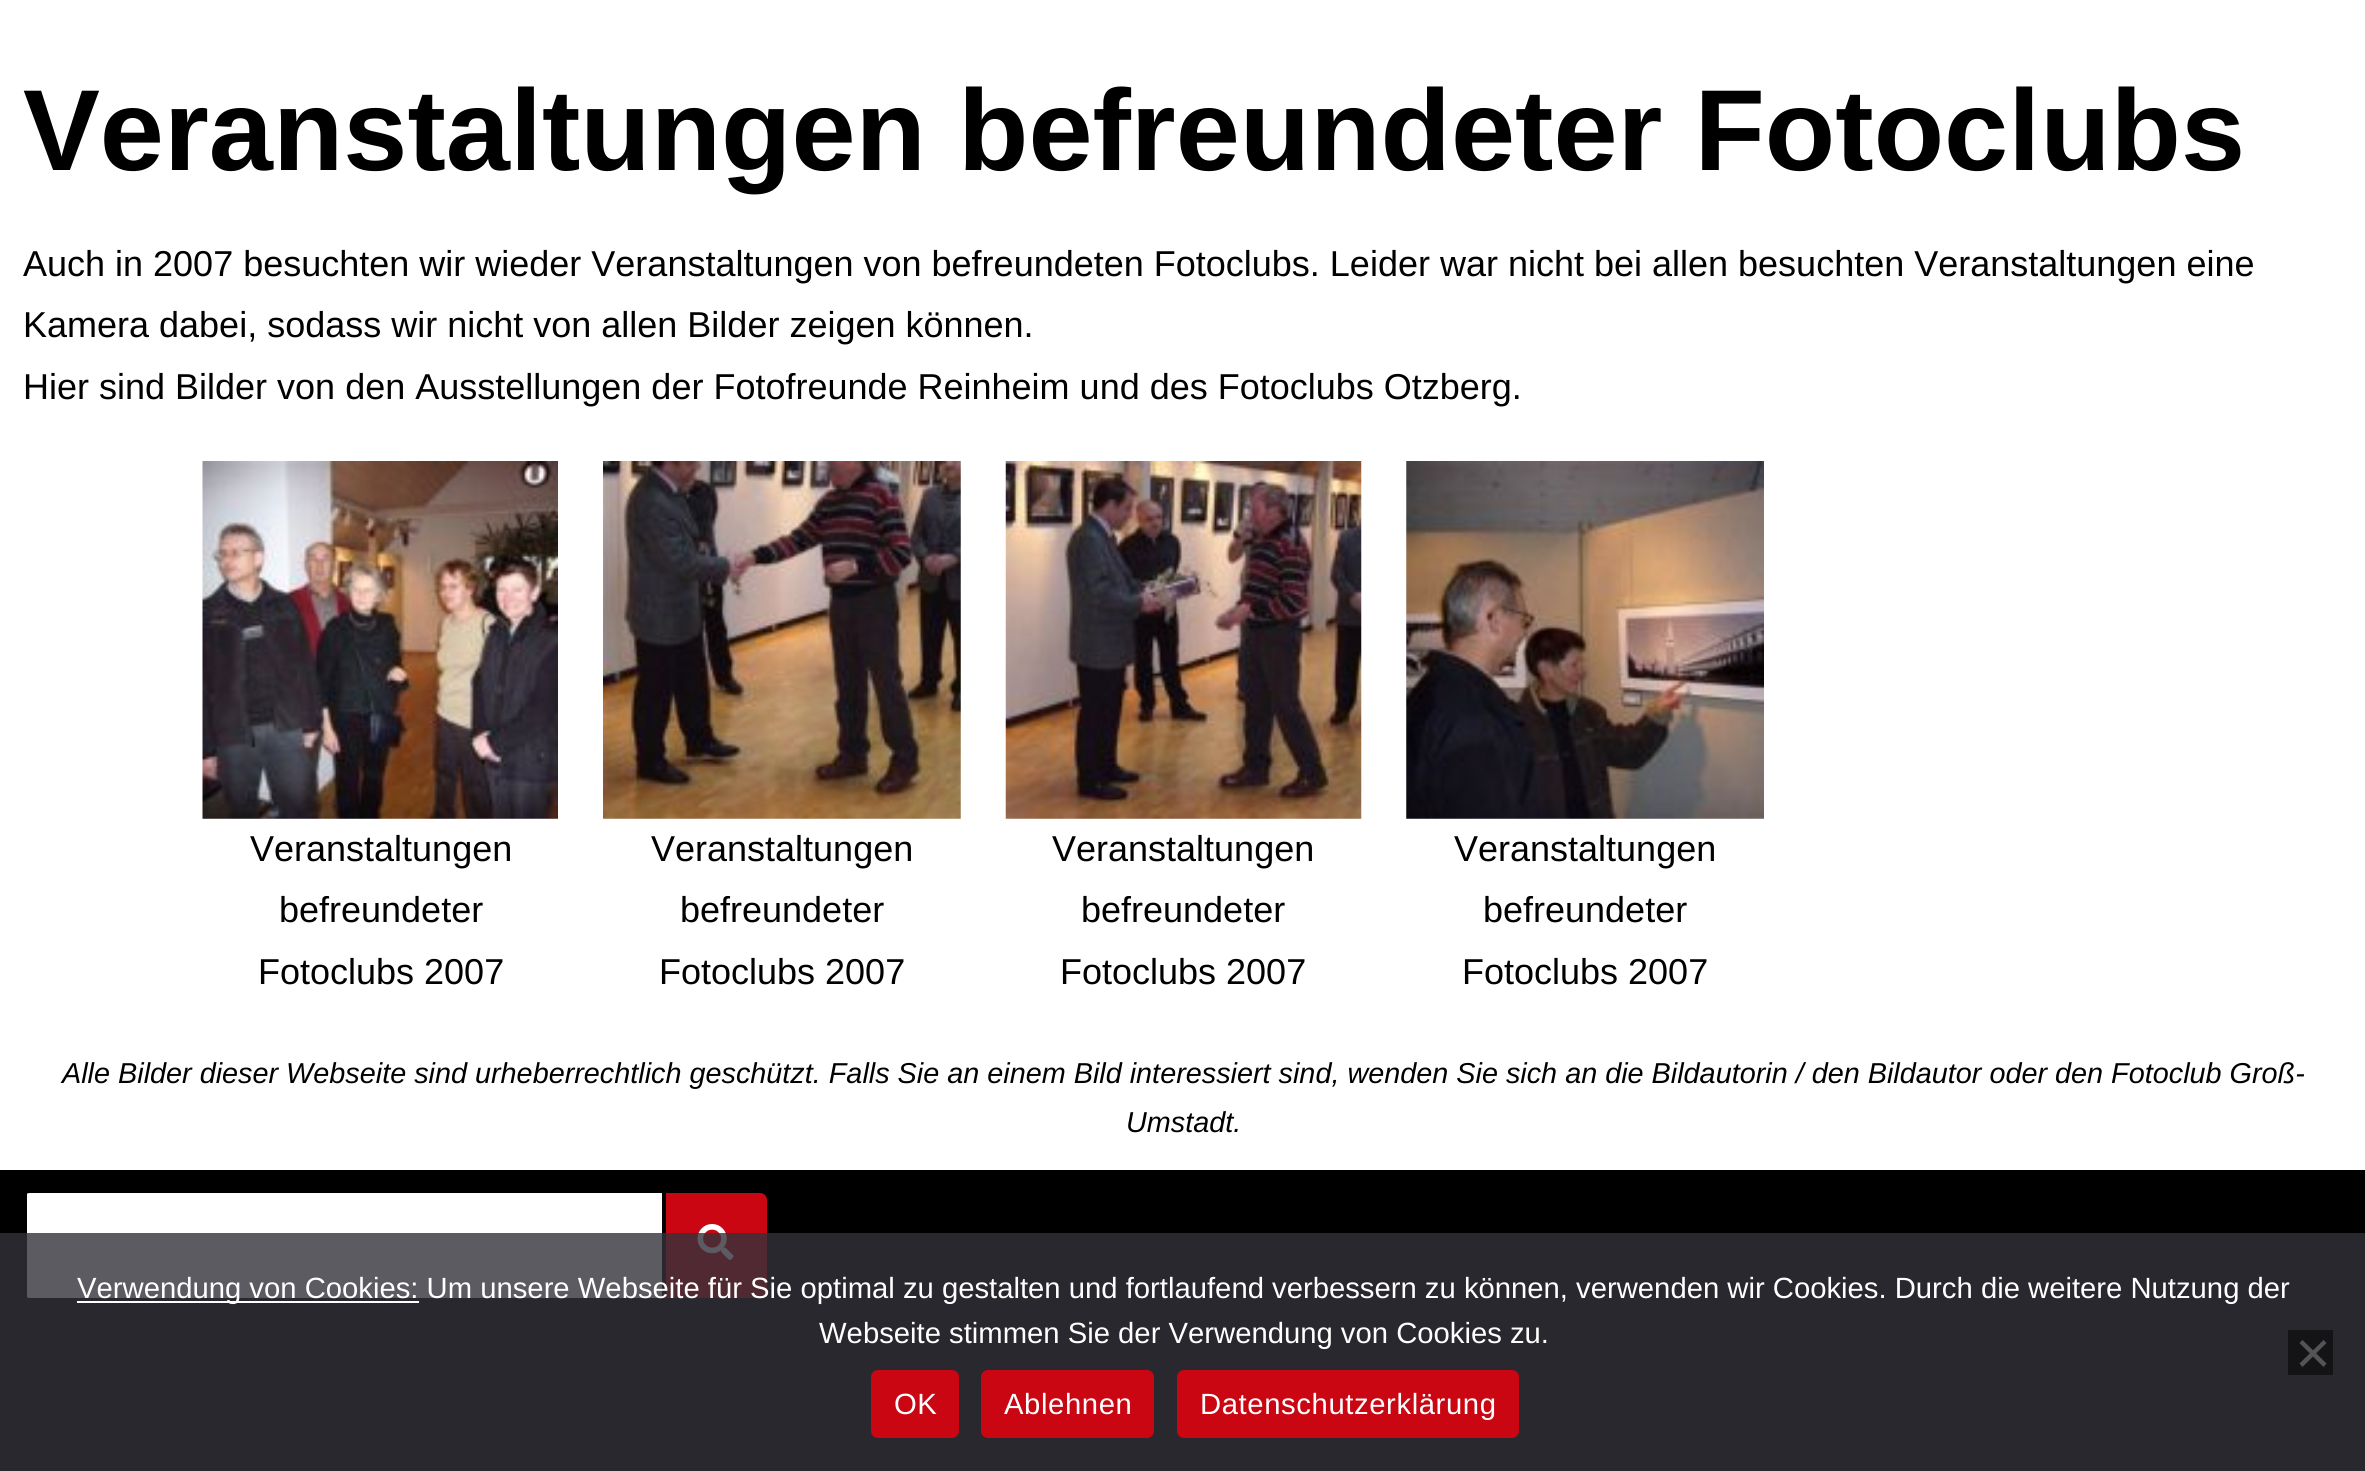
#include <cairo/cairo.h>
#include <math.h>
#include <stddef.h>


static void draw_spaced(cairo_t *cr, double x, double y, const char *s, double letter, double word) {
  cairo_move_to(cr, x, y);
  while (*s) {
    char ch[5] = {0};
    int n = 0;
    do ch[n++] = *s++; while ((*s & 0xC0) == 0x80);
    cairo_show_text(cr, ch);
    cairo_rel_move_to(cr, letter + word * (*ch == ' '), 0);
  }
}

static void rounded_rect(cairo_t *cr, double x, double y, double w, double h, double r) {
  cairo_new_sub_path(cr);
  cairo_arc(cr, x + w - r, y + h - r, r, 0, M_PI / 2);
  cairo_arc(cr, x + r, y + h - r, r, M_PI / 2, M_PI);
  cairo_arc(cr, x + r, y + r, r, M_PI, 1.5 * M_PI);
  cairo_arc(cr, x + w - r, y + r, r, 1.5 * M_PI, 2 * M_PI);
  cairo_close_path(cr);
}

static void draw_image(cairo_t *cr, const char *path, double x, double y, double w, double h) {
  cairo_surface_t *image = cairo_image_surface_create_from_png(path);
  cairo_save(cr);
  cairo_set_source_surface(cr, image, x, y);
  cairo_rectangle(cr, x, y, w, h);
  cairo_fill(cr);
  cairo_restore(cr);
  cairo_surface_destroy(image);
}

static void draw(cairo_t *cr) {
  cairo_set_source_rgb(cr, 1, 1, 1);
  cairo_paint(cr);
  draw_image(cr, "images/1.png", 202, 461, 356, 358);
  draw_image(cr, "images/2.png", 603, 461, 358, 358);
  draw_image(cr, "images/3.png", 1005, 461, 357, 358);
  draw_image(cr, "images/4.png", 1406, 461, 358, 358);
  cairo_set_source_rgb(cr, 0, 0, 0);
  cairo_rectangle(cr, 0, 1170, 2365, 301);
  cairo_fill(cr);
  cairo_save(cr);
  rounded_rect(cr, 23, 1193, 744, 105, 7);
  cairo_clip(cr);
  cairo_set_source_rgb(cr, 1, 1, 1);
  cairo_rectangle(cr, 27, 1193, 635, 105);
  cairo_fill(cr);
  cairo_restore(cr);
  cairo_set_source_rgb(cr, 202 / 255.0, 6 / 255.0, 19 / 255.0);
  cairo_new_path(cr);
  cairo_move_to(cr, 666, 1193);
  cairo_line_to(cr, 760, 1193);
  cairo_curve_to(cr, 764, 1193, 767, 1196, 767, 1200);
  cairo_line_to(cr, 767, 1291);
  cairo_curve_to(cr, 767, 1295, 764, 1298, 760, 1298);
  cairo_line_to(cr, 666, 1298);
  cairo_close_path(cr);
  cairo_fill(cr);
  draw_image(cr, "images/5.png", 697, 1224, 37, 36);
  cairo_set_source_rgba(cr, 50 / 255.0, 50 / 255.0, 58 / 255.0, 0.8);
  cairo_rectangle(cr, 0, 1233, 2365, 238);
  cairo_fill(cr);
  cairo_set_source_rgb(cr, 1, 1, 1);
  cairo_rectangle(cr, 77, 1301, 342, 2);
  cairo_fill(cr);
  cairo_set_source_rgb(cr, 20 / 255.0, 20 / 255.0, 23 / 255.0);
  cairo_rectangle(cr, 2288, 1330, 45, 45);
  cairo_fill(cr);
  cairo_set_source_rgb(cr, 84 / 255.0, 84 / 255.0, 87 / 255.0);
  cairo_new_path(cr);
  cairo_move_to(cr, 2323.5, 1340);
  cairo_line_to(cr, 2326.5, 1343);
  cairo_line_to(cr, 2302.5, 1367);
  cairo_line_to(cr, 2299.5, 1363.5);
  cairo_close_path(cr);
  cairo_fill(cr);
  cairo_new_path(cr);
  cairo_move_to(cr, 2299.5, 1343);
  cairo_line_to(cr, 2302.5, 1340);
  cairo_line_to(cr, 2326.5, 1363.5);
  cairo_line_to(cr, 2323.5, 1367);
  cairo_close_path(cr);
  cairo_fill(cr);
  cairo_set_source_rgb(cr, 202 / 255.0, 6 / 255.0, 19 / 255.0);
  rounded_rect(cr, 871, 1370, 88, 68, 7);
  cairo_fill(cr);
  rounded_rect(cr, 981, 1370, 173, 68, 7);
  cairo_fill(cr);
  rounded_rect(cr, 1177, 1370, 342, 68, 7);
  cairo_fill(cr);
  cairo_select_font_face(cr, "Liberation Sans", CAIRO_FONT_SLANT_NORMAL, CAIRO_FONT_WEIGHT_BOLD);
  cairo_set_font_size(cr, 115.25);
  cairo_set_source_rgb(cr, 0, 0, 0);
  cairo_move_to(cr, 23, 170);
  cairo_show_text(cr, "Veranstaltungen befreundeter Fotoclubs");
  cairo_select_font_face(cr, "Liberation Sans", CAIRO_FONT_SLANT_NORMAL, CAIRO_FONT_WEIGHT_NORMAL);
  cairo_set_font_size(cr, 36);
  cairo_move_to(cr, 23, 276);
  cairo_show_text(cr, "Auch in 2007 besuchten wir wieder Veranstaltungen von befreundeten Fotoclubs. Leider war nicht bei allen besuchten Veranstaltungen eine");
  cairo_move_to(cr, 23, 337);
  cairo_show_text(cr, "Kamera dabei, sodass wir nicht von allen Bilder zeigen können.");
  cairo_move_to(cr, 23, 399);
  cairo_show_text(cr, "Hier sind Bilder von den Ausstellungen der Fotofreunde Reinheim und des Fotoclubs Otzberg.");
  cairo_move_to(cr, 250, 861);
  cairo_show_text(cr, "Veranstaltungen");
  cairo_move_to(cr, 279, 922);
  cairo_show_text(cr, "befreundeter");
  cairo_move_to(cr, 258, 984);
  cairo_show_text(cr, "Fotoclubs 2007");
  cairo_move_to(cr, 651, 861);
  cairo_show_text(cr, "Veranstaltungen");
  cairo_move_to(cr, 680, 922);
  cairo_show_text(cr, "befreundeter");
  cairo_move_to(cr, 659, 984);
  cairo_show_text(cr, "Fotoclubs 2007");
  cairo_move_to(cr, 1052, 861);
  cairo_show_text(cr, "Veranstaltungen");
  cairo_move_to(cr, 1081, 922);
  cairo_show_text(cr, "befreundeter");
  cairo_move_to(cr, 1060, 984);
  cairo_show_text(cr, "Fotoclubs 2007");
  cairo_move_to(cr, 1454, 861);
  cairo_show_text(cr, "Veranstaltungen");
  cairo_move_to(cr, 1483, 922);
  cairo_show_text(cr, "befreundeter");
  cairo_move_to(cr, 1462, 984);
  cairo_show_text(cr, "Fotoclubs 2007");
  cairo_select_font_face(cr, "Liberation Sans", CAIRO_FONT_SLANT_ITALIC, CAIRO_FONT_WEIGHT_NORMAL);
  cairo_set_font_size(cr, 28.8);
  cairo_move_to(cr, 62, 1083);
  cairo_show_text(cr, "Alle Bilder dieser Webseite sind urheberrechtlich geschützt. Falls Sie an einem Bild interessiert sind, wenden Sie sich an die Bildautorin / den Bildautor oder den Fotoclub Groß-");
  cairo_move_to(cr, 1126, 1132);
  cairo_show_text(cr, "Umstadt.");
  cairo_select_font_face(cr, "Liberation Sans", CAIRO_FONT_SLANT_NORMAL, CAIRO_FONT_WEIGHT_NORMAL);
  cairo_set_font_size(cr, 29.25);
  cairo_set_source_rgb(cr, 1, 1, 1);
  cairo_move_to(cr, 77, 1298);
  cairo_show_text(cr, "Verwendung von Cookies: Um unsere Webseite für Sie optimal zu gestalten und fortlaufend verbessern zu können, verwenden wir Cookies. Durch die weitere Nutzung der");
  cairo_move_to(cr, 819, 1343);
  cairo_show_text(cr, "Webseite stimmen Sie der Verwendung von Cookies zu.");
  draw_spaced(cr, 894, 1414, "OK", 0.6, 0);
  draw_spaced(cr, 1004, 1414, "Ablehnen", 0.6, 0);
  draw_spaced(cr, 1200, 1414, "Datenschutzerklärung", 0.6, 0);
}

int main(void) {
  cairo_surface_t *surface = cairo_image_surface_create(CAIRO_FORMAT_RGB24, 2365, 1471);
  cairo_t *cr = cairo_create(surface);
  cairo_font_options_t *options = cairo_font_options_create();
  cairo_font_options_set_hint_metrics(options, CAIRO_HINT_METRICS_OFF);
  cairo_font_options_set_hint_style(options, CAIRO_HINT_STYLE_NONE);
  cairo_set_font_options(cr, options);
  cairo_set_miter_limit(cr, 4);
  draw(cr);
  cairo_surface_write_to_png(surface, "out.png");
  cairo_font_options_destroy(options);
  cairo_destroy(cr);
  cairo_surface_destroy(surface);
  return 0;
}
